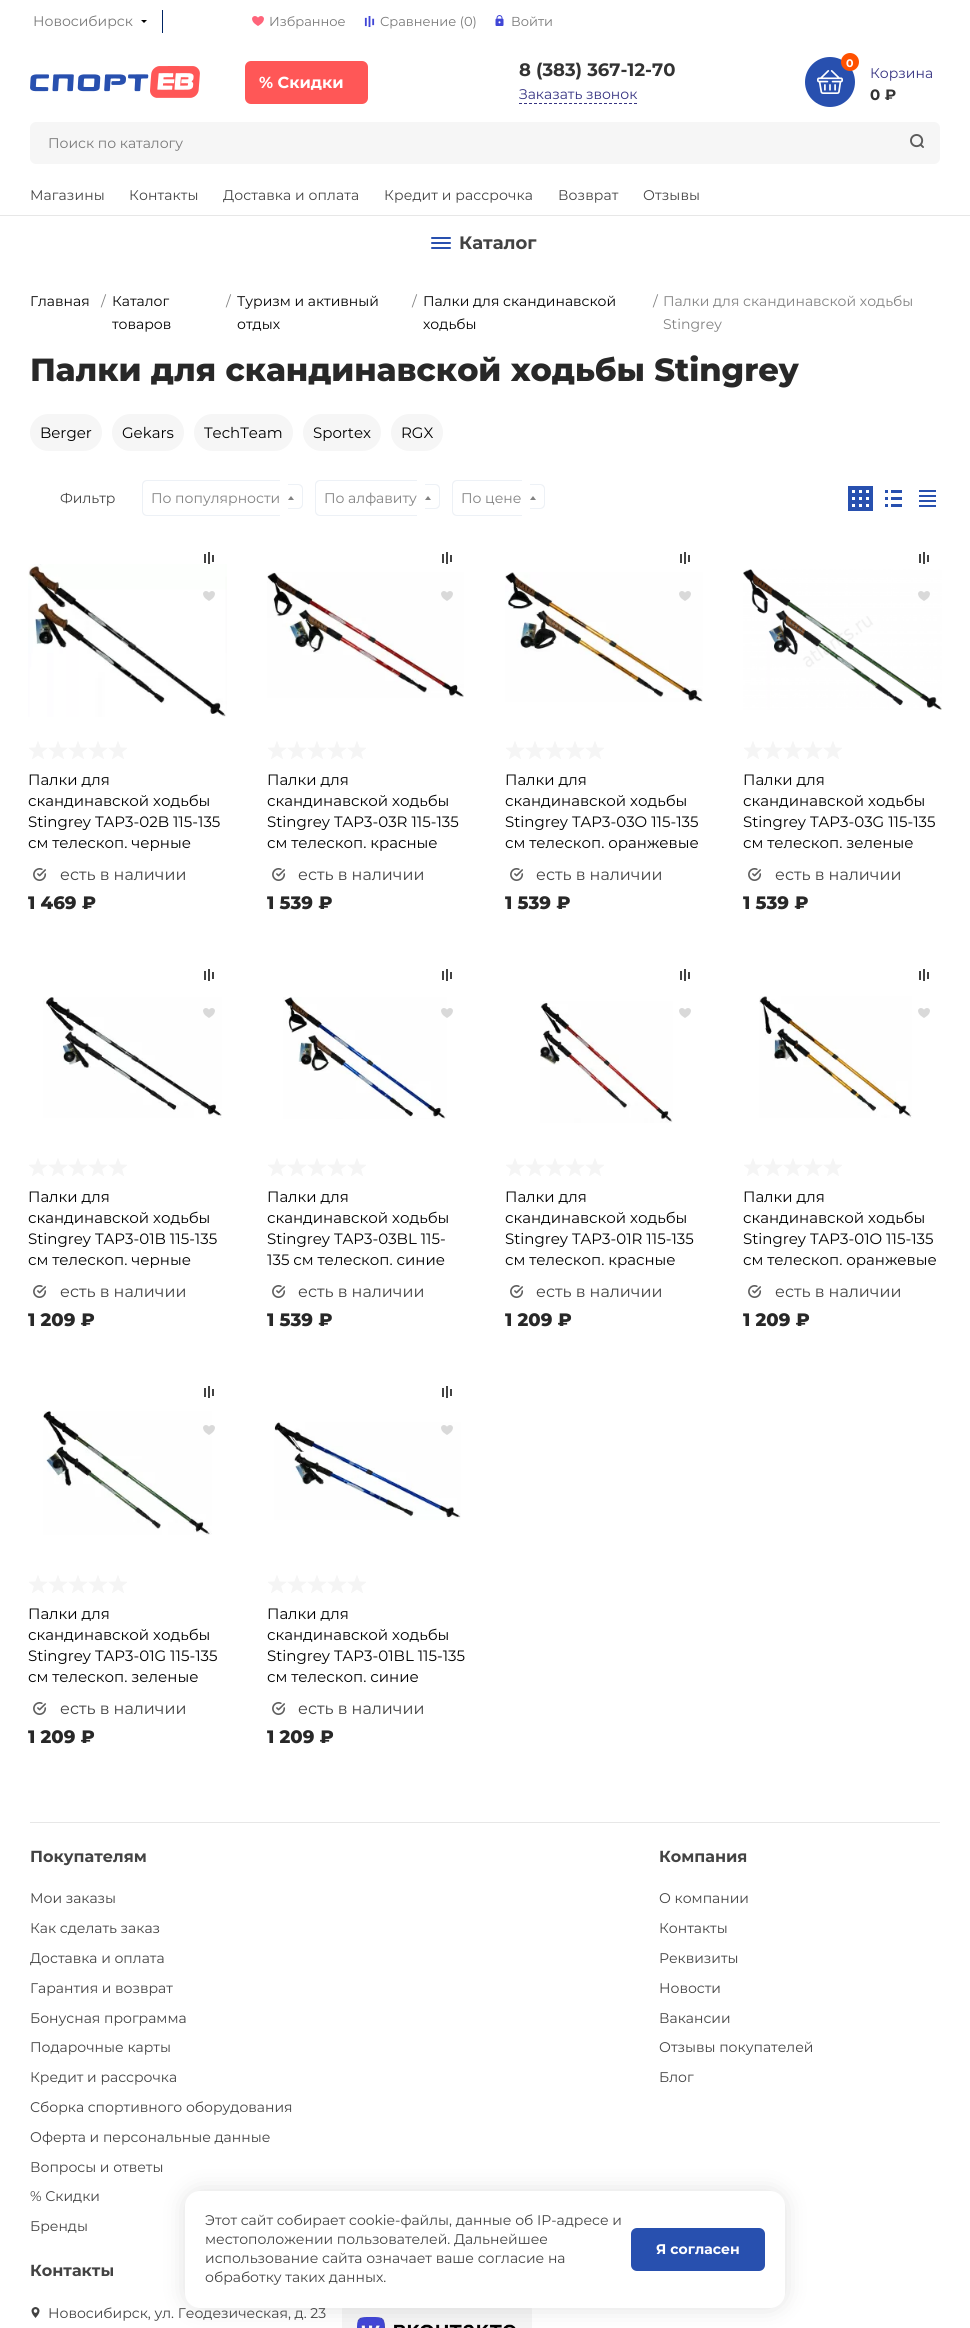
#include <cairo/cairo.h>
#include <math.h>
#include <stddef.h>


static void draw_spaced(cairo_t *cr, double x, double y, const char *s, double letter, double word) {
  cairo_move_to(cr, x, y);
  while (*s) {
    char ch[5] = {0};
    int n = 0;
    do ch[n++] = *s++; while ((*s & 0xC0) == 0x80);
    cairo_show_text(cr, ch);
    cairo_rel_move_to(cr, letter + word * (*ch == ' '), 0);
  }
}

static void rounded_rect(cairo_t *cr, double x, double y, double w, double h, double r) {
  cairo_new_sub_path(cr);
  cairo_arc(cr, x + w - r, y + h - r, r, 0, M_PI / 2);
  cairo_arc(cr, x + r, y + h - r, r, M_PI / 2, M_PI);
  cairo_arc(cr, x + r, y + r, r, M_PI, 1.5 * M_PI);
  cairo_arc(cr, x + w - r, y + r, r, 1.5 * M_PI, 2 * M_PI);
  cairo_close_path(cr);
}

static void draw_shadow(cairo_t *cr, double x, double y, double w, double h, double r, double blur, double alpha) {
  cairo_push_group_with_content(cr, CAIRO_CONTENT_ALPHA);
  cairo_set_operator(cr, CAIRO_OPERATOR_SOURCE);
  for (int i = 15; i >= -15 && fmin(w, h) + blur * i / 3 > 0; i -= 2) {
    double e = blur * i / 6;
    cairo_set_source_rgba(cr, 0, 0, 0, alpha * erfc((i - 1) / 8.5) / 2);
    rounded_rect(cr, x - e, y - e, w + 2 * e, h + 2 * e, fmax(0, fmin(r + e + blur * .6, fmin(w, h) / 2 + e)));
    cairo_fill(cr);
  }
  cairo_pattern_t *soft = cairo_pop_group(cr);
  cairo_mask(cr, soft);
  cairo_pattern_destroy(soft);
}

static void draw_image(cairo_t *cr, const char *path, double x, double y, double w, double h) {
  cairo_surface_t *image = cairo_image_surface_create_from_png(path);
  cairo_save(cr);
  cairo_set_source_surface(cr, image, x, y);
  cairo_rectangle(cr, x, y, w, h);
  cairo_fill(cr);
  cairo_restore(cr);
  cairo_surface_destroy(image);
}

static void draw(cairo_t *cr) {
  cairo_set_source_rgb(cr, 1, 1, 1);
  cairo_paint(cr);
  cairo_set_source_rgb(cr, 0, 36 / 255.0, 100 / 255.0);
  cairo_rectangle(cr, 162, 10, 1, 23);
  cairo_fill(cr);
  cairo_set_source_rgb(cr, 0, 0, 0);
  cairo_new_path(cr);
  cairo_move_to(cr, 141, 20);
  cairo_line_to(cr, 147, 20);
  cairo_line_to(cr, 144, 23);
  cairo_close_path(cr);
  cairo_fill(cr);
  draw_image(cr, "images/1.png", 252, 16, 12, 10);
  draw_image(cr, "images/2.png", 364, 16, 11, 11);
  draw_image(cr, "images/3.png", 495, 15, 9, 11);
  draw_image(cr, "images/4.png", 30, 66, 170, 32);
  cairo_set_source_rgb(cr, 1, 87 / 255.0, 87 / 255.0);
  rounded_rect(cr, 245, 61, 123, 43, 6);
  cairo_fill(cr);
  cairo_new_path(cr);
  cairo_move_to(cr, 519, 103.5);
  cairo_line_to(cr, 637, 103.5);
  cairo_set_source_rgb(cr, 53 / 255.0, 50 / 255.0, 129 / 255.0);
  cairo_set_line_width(cr, 1);
  cairo_set_dash(cr, (double[]){3, 2}, 2, 0);
  cairo_stroke(cr);
  cairo_set_source_rgb(cr, 40 / 255.0, 80 / 255.0, 175 / 255.0);
  cairo_arc(cr, 830, 82, 25, 0, 2 * M_PI);
  cairo_fill(cr);
  draw_image(cr, "images/5.png", 817, 70, 26, 24);
  cairo_set_source_rgb(cr, 1, 81 / 255.0, 0);
  cairo_arc(cr, 850, 62, 9, 0, 2 * M_PI);
  cairo_fill(cr);
  cairo_set_source_rgb(cr, 246 / 255.0, 246 / 255.0, 246 / 255.0);
  rounded_rect(cr, 30, 122, 910, 42, 6);
  cairo_fill(cr);
  draw_image(cr, "images/6.png", 910, 134, 14, 14);
  cairo_set_source_rgb(cr, 231 / 255.0, 231 / 255.0, 231 / 255.0);
  cairo_rectangle(cr, 0, 215, 970, 1);
  cairo_fill(cr);
  cairo_set_source_rgb(cr, 40 / 255.0, 80 / 255.0, 175 / 255.0);
  rounded_rect(cr, 431, 237, 20, 2, 1);
  cairo_fill(cr);
  rounded_rect(cr, 431, 242, 20, 2, 1);
  cairo_fill(cr);
  rounded_rect(cr, 431, 247, 20, 2, 1);
  cairo_fill(cr);
  cairo_set_source_rgb(cr, 246 / 255.0, 246 / 255.0, 246 / 255.0);
  rounded_rect(cr, 30, 414, 72, 37, 18.5);
  cairo_fill(cr);
  rounded_rect(cr, 112, 414, 72, 37, 18.5);
  cairo_fill(cr);
  rounded_rect(cr, 194, 414, 99, 37, 18.5);
  cairo_fill(cr);
  rounded_rect(cr, 303, 414, 78, 37, 18.5);
  cairo_fill(cr);
  rounded_rect(cr, 391, 414, 52, 37, 18.5);
  cairo_fill(cr);
  cairo_set_source_rgb(cr, 237 / 255.0, 241 / 255.0, 246 / 255.0);
  cairo_set_fill_rule(cr, CAIRO_FILL_RULE_EVEN_ODD);
  cairo_new_path(cr);
  cairo_move_to(cr, 147, 480);
  cairo_line_to(cr, 280, 480);
  cairo_line_to(cr, 280, 516);
  cairo_line_to(cr, 147, 516);
  cairo_curve_to(cr, 144, 516, 142, 514, 142, 511);
  cairo_line_to(cr, 142, 485);
  cairo_curve_to(cr, 142, 482, 144, 480, 147, 480);
  cairo_close_path(cr);
  cairo_move_to(cr, 147, 481);
  cairo_line_to(cr, 280, 481);
  cairo_line_to(cr, 280, 515);
  cairo_line_to(cr, 147, 515);
  cairo_curve_to(cr, 145, 515, 143, 513, 143, 511);
  cairo_line_to(cr, 143, 485);
  cairo_curve_to(cr, 143, 483, 145, 481, 147, 481);
  cairo_close_path(cr);
  cairo_fill(cr);
  cairo_new_path(cr);
  cairo_move_to(cr, 288, 484);
  cairo_line_to(cr, 298, 484);
  cairo_curve_to(cr, 301, 484, 303, 486, 303, 489);
  cairo_line_to(cr, 303, 504);
  cairo_curve_to(cr, 303, 507, 301, 509, 298, 509);
  cairo_line_to(cr, 288, 509);
  cairo_close_path(cr);
  cairo_move_to(cr, 288, 485);
  cairo_line_to(cr, 298, 485);
  cairo_curve_to(cr, 300, 485, 302, 487, 302, 489);
  cairo_line_to(cr, 302, 504);
  cairo_curve_to(cr, 302, 506, 300, 508, 298, 508);
  cairo_line_to(cr, 288, 508);
  cairo_close_path(cr);
  cairo_fill(cr);
  cairo_set_source_rgb(cr, 130 / 255.0, 130 / 255.0, 130 / 255.0);
  cairo_set_fill_rule(cr, CAIRO_FILL_RULE_WINDING);
  cairo_new_path(cr);
  cairo_move_to(cr, 294, 500);
  cairo_line_to(cr, 288, 500);
  cairo_line_to(cr, 291, 496);
  cairo_close_path(cr);
  cairo_fill(cr);
  cairo_set_source_rgb(cr, 237 / 255.0, 241 / 255.0, 246 / 255.0);
  cairo_set_fill_rule(cr, CAIRO_FILL_RULE_EVEN_ODD);
  cairo_new_path(cr);
  cairo_move_to(cr, 320, 480);
  cairo_line_to(cr, 417, 480);
  cairo_line_to(cr, 417, 516);
  cairo_line_to(cr, 320, 516);
  cairo_curve_to(cr, 317, 516, 315, 514, 315, 511);
  cairo_line_to(cr, 315, 485);
  cairo_curve_to(cr, 315, 482, 317, 480, 320, 480);
  cairo_close_path(cr);
  cairo_move_to(cr, 320, 481);
  cairo_line_to(cr, 417, 481);
  cairo_line_to(cr, 417, 515);
  cairo_line_to(cr, 320, 515);
  cairo_curve_to(cr, 318, 515, 316, 513, 316, 511);
  cairo_line_to(cr, 316, 485);
  cairo_curve_to(cr, 316, 483, 318, 481, 320, 481);
  cairo_close_path(cr);
  cairo_fill(cr);
  cairo_new_path(cr);
  cairo_move_to(cr, 425, 484);
  cairo_line_to(cr, 435, 484);
  cairo_curve_to(cr, 438, 484, 440, 486, 440, 489);
  cairo_line_to(cr, 440, 504);
  cairo_curve_to(cr, 440, 507, 438, 509, 435, 509);
  cairo_line_to(cr, 425, 509);
  cairo_close_path(cr);
  cairo_move_to(cr, 425, 485);
  cairo_line_to(cr, 435, 485);
  cairo_curve_to(cr, 437, 485, 439, 487, 439, 489);
  cairo_line_to(cr, 439, 504);
  cairo_curve_to(cr, 439, 506, 437, 508, 435, 508);
  cairo_line_to(cr, 425, 508);
  cairo_close_path(cr);
  cairo_fill(cr);
  cairo_set_source_rgb(cr, 130 / 255.0, 130 / 255.0, 130 / 255.0);
  cairo_set_fill_rule(cr, CAIRO_FILL_RULE_WINDING);
  cairo_new_path(cr);
  cairo_move_to(cr, 431, 500);
  cairo_line_to(cr, 425, 500);
  cairo_line_to(cr, 428, 496);
  cairo_close_path(cr);
  cairo_fill(cr);
  cairo_set_source_rgb(cr, 237 / 255.0, 241 / 255.0, 246 / 255.0);
  cairo_set_fill_rule(cr, CAIRO_FILL_RULE_EVEN_ODD);
  cairo_new_path(cr);
  cairo_move_to(cr, 457, 480);
  cairo_line_to(cr, 522, 480);
  cairo_line_to(cr, 522, 516);
  cairo_line_to(cr, 457, 516);
  cairo_curve_to(cr, 454, 516, 452, 514, 452, 511);
  cairo_line_to(cr, 452, 485);
  cairo_curve_to(cr, 452, 482, 454, 480, 457, 480);
  cairo_close_path(cr);
  cairo_move_to(cr, 457, 481);
  cairo_line_to(cr, 522, 481);
  cairo_line_to(cr, 522, 515);
  cairo_line_to(cr, 457, 515);
  cairo_curve_to(cr, 455, 515, 453, 513, 453, 511);
  cairo_line_to(cr, 453, 485);
  cairo_curve_to(cr, 453, 483, 455, 481, 457, 481);
  cairo_close_path(cr);
  cairo_fill(cr);
  cairo_new_path(cr);
  cairo_move_to(cr, 530, 484);
  cairo_line_to(cr, 540, 484);
  cairo_curve_to(cr, 543, 484, 545, 486, 545, 489);
  cairo_line_to(cr, 545, 504);
  cairo_curve_to(cr, 545, 507, 543, 509, 540, 509);
  cairo_line_to(cr, 530, 509);
  cairo_close_path(cr);
  cairo_move_to(cr, 530, 485);
  cairo_line_to(cr, 540, 485);
  cairo_curve_to(cr, 542, 485, 544, 487, 544, 489);
  cairo_line_to(cr, 544, 504);
  cairo_curve_to(cr, 544, 506, 542, 508, 540, 508);
  cairo_line_to(cr, 530, 508);
  cairo_close_path(cr);
  cairo_fill(cr);
  cairo_set_source_rgb(cr, 130 / 255.0, 130 / 255.0, 130 / 255.0);
  cairo_set_fill_rule(cr, CAIRO_FILL_RULE_WINDING);
  cairo_new_path(cr);
  cairo_move_to(cr, 536, 500);
  cairo_line_to(cr, 530, 500);
  cairo_line_to(cr, 533, 496);
  cairo_close_path(cr);
  cairo_fill(cr);
  cairo_set_source_rgb(cr, 40 / 255.0, 80 / 255.0, 175 / 255.0);
  cairo_rectangle(cr, 848, 486, 25, 25);
  cairo_fill(cr);
  draw_image(cr, "images/7.png", 852, 490, 17, 17);
  draw_image(cr, "images/8.png", 885, 490, 17, 17);
  draw_image(cr, "images/9.png", 919, 490, 17, 17);
  draw_image(cr, "images/10.png", 204, 552, 10, 12);
  draw_image(cr, "images/12.png", 28, 564, 199, 153);
  draw_image(cr, "images/11.png", 203, 591, 12, 10);
  draw_image(cr, "images/13.png", 29, 741, 98, 18);
  draw_image(cr, "images/14.png", 33, 868, 14, 13);
  draw_image(cr, "images/10.png", 442, 552, 10, 12);
  draw_image(cr, "images/16.png", 267, 572, 197, 126);
  draw_image(cr, "images/15.png", 441, 591, 12, 10);
  draw_image(cr, "images/13.png", 268, 741, 98, 18);
  draw_image(cr, "images/14.png", 272, 868, 14, 13);
  draw_image(cr, "images/10.png", 680, 552, 10, 12);
  draw_image(cr, "images/17.png", 505, 572, 198, 130);
  draw_image(cr, "images/15.png", 679, 591, 12, 10);
  draw_image(cr, "images/13.png", 506, 741, 98, 18);
  draw_image(cr, "images/14.png", 510, 868, 14, 13);
  draw_image(cr, "images/10.png", 919, 552, 10, 12);
  draw_image(cr, "images/19.png", 743, 569, 199, 141);
  draw_image(cr, "images/18.png", 918, 591, 12, 10);
  draw_image(cr, "images/13.png", 744, 741, 98, 18);
  draw_image(cr, "images/14.png", 748, 868, 14, 13);
  draw_image(cr, "images/10.png", 204, 969, 10, 12);
  draw_image(cr, "images/20.png", 43, 997, 179, 121);
  draw_image(cr, "images/15.png", 203, 1008, 12, 10);
  draw_image(cr, "images/13.png", 29, 1158, 98, 18);
  draw_image(cr, "images/14.png", 33, 1285, 14, 13);
  draw_image(cr, "images/10.png", 442, 969, 10, 12);
  draw_image(cr, "images/22.png", 283, 997, 164, 122);
  draw_image(cr, "images/21.png", 441, 1008, 12, 10);
  draw_image(cr, "images/13.png", 268, 1158, 98, 18);
  draw_image(cr, "images/14.png", 272, 1285, 14, 13);
  draw_image(cr, "images/10.png", 680, 969, 10, 12);
  draw_image(cr, "images/11.png", 679, 1008, 12, 10);
  draw_image(cr, "images/23.png", 540, 1001, 133, 122);
  draw_image(cr, "images/13.png", 506, 1158, 98, 18);
  draw_image(cr, "images/14.png", 510, 1285, 14, 13);
  draw_image(cr, "images/24.png", 759, 996, 153, 122);
  draw_image(cr, "images/10.png", 919, 969, 10, 12);
  draw_image(cr, "images/11.png", 918, 1008, 12, 10);
  draw_image(cr, "images/13.png", 744, 1158, 98, 18);
  draw_image(cr, "images/14.png", 748, 1285, 14, 13);
  draw_image(cr, "images/10.png", 204, 1386, 10, 12);
  draw_image(cr, "images/26.png", 43, 1411, 169, 124);
  draw_image(cr, "images/25.png", 203, 1425, 12, 10);
  draw_image(cr, "images/13.png", 29, 1575, 98, 18);
  draw_image(cr, "images/14.png", 33, 1702, 14, 13);
  draw_image(cr, "images/10.png", 442, 1386, 10, 12);
  draw_image(cr, "images/27.png", 274, 1422, 187, 98);
  draw_image(cr, "images/15.png", 441, 1425, 12, 10);
  draw_image(cr, "images/13.png", 268, 1575, 98, 18);
  draw_image(cr, "images/14.png", 272, 1702, 14, 13);
  cairo_set_source_rgb(cr, 231 / 255.0, 231 / 255.0, 231 / 255.0);
  cairo_rectangle(cr, 30, 1822, 910, 1);
  cairo_fill(cr);
  draw_image(cr, "images/28.png", 31, 2307, 9, 11);
  cairo_set_source_rgb(cr, 245 / 255.0, 245 / 255.0, 245 / 255.0);
  rounded_rect(cr, 342, 2302, 190, 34, 8);
  cairo_fill(cr);
  draw_image(cr, "images/29.png", 357, 2317, 159, 11);
  cairo_set_source_rgb(cr, 0, 0, 0);
  draw_shadow(cr, 185, 2191, 600, 117, 15, 12, 0.12);
  cairo_select_font_face(cr, "Montserrat", CAIRO_FONT_SLANT_NORMAL, CAIRO_FONT_WEIGHT_NORMAL);
  cairo_set_font_size(cr, 14);
  cairo_set_source_rgb(cr, 121 / 255.0, 121 / 255.0, 121 / 255.0);
  cairo_move_to(cr, 33, 26);
  cairo_show_text(cr, "Новосибирск");
  cairo_set_font_size(cr, 13);
  cairo_move_to(cr, 269, 26);
  cairo_show_text(cr, "Избранное");
  cairo_move_to(cr, 380, 26);
  cairo_show_text(cr, "Сравнение (0)");
  cairo_move_to(cr, 511, 26);
  cairo_show_text(cr, "Войти");
  cairo_select_font_face(cr, "Montserrat", CAIRO_FONT_SLANT_NORMAL, CAIRO_FONT_WEIGHT_BOLD);
  cairo_set_font_size(cr, 16);
  cairo_set_source_rgb(cr, 1, 1, 1);
  cairo_move_to(cr, 259, 88);
  cairo_show_text(cr, "% Скидки");
  cairo_set_font_size(cr, 18);
  cairo_set_source_rgb(cr, 51 / 255.0, 51 / 255.0, 51 / 255.0);
  cairo_move_to(cr, 519, 76);
  cairo_show_text(cr, "8 (383) 367-12-70");
  cairo_select_font_face(cr, "Montserrat", CAIRO_FONT_SLANT_NORMAL, CAIRO_FONT_WEIGHT_NORMAL);
  cairo_set_font_size(cr, 14);
  cairo_set_source_rgb(cr, 53 / 255.0, 50 / 255.0, 129 / 255.0);
  cairo_move_to(cr, 519, 99);
  cairo_show_text(cr, "Заказать звонок");
  cairo_select_font_face(cr, "Montserrat", CAIRO_FONT_SLANT_NORMAL, CAIRO_FONT_WEIGHT_BOLD);
  cairo_set_font_size(cr, 11);
  cairo_set_source_rgb(cr, 1, 1, 1);
  cairo_move_to(cr, 846, 67);
  cairo_show_text(cr, "0");
  cairo_select_font_face(cr, "Montserrat", CAIRO_FONT_SLANT_NORMAL, CAIRO_FONT_WEIGHT_NORMAL);
  cairo_set_font_size(cr, 14);
  cairo_set_source_rgb(cr, 53 / 255.0, 50 / 255.0, 129 / 255.0);
  cairo_move_to(cr, 870, 78);
  cairo_show_text(cr, "Корзина");
  cairo_select_font_face(cr, "Montserrat", CAIRO_FONT_SLANT_NORMAL, CAIRO_FONT_WEIGHT_BOLD);
  cairo_set_font_size(cr, 15);
  cairo_set_source_rgb(cr, 51 / 255.0, 51 / 255.0, 51 / 255.0);
  cairo_move_to(cr, 870, 100);
  cairo_show_text(cr, "0 ₽");
  cairo_select_font_face(cr, "Montserrat", CAIRO_FONT_SLANT_NORMAL, CAIRO_FONT_WEIGHT_NORMAL);
  cairo_set_font_size(cr, 14);
  cairo_set_source_rgb(cr, 121 / 255.0, 121 / 255.0, 121 / 255.0);
  cairo_move_to(cr, 48, 148);
  cairo_show_text(cr, "Поиск по каталогу");
  cairo_set_source_rgb(cr, 67 / 255.0, 67 / 255.0, 67 / 255.0);
  draw_spaced(cr, 30, 200, "Магазины", 0.1, 0);
  draw_spaced(cr, 129, 200, "Контакты", 0.1, 0);
  draw_spaced(cr, 223, 200, "Доставка и оплата", 0.1, 0);
  draw_spaced(cr, 384, 200, "Кредит и рассрочка", 0.1, 0);
  draw_spaced(cr, 558, 200, "Возврат", 0.1, 0);
  draw_spaced(cr, 643, 200, "Отзывы", 0.1, 0);
  cairo_select_font_face(cr, "Montserrat", CAIRO_FONT_SLANT_NORMAL, CAIRO_FONT_WEIGHT_BOLD);
  cairo_set_font_size(cr, 18);
  cairo_move_to(cr, 459, 249);
  cairo_show_text(cr, "Каталог");
  cairo_select_font_face(cr, "Montserrat", CAIRO_FONT_SLANT_NORMAL, CAIRO_FONT_WEIGHT_NORMAL);
  cairo_set_font_size(cr, 14);
  cairo_set_source_rgb(cr, 0, 0, 0);
  cairo_move_to(cr, 30, 306);
  cairo_show_text(cr, "Главная");
  cairo_set_source_rgb(cr, 130 / 255.0, 130 / 255.0, 130 / 255.0);
  cairo_move_to(cr, 101, 306);
  cairo_show_text(cr, "/");
  cairo_set_source_rgb(cr, 0, 0, 0);
  cairo_move_to(cr, 112, 306);
  cairo_show_text(cr, "Каталог");
  cairo_move_to(cr, 112, 329);
  cairo_show_text(cr, "товаров");
  cairo_set_source_rgb(cr, 130 / 255.0, 130 / 255.0, 130 / 255.0);
  cairo_move_to(cr, 226, 306);
  cairo_show_text(cr, "/");
  cairo_set_source_rgb(cr, 0, 0, 0);
  cairo_move_to(cr, 237, 306);
  cairo_show_text(cr, "Туризм и активный");
  cairo_move_to(cr, 237, 329);
  cairo_show_text(cr, "отдых");
  cairo_set_source_rgb(cr, 130 / 255.0, 130 / 255.0, 130 / 255.0);
  cairo_move_to(cr, 412, 306);
  cairo_show_text(cr, "/");
  cairo_set_source_rgb(cr, 0, 0, 0);
  cairo_move_to(cr, 423, 306);
  cairo_show_text(cr, "Палки для скандинавской");
  cairo_move_to(cr, 423, 329);
  cairo_show_text(cr, "ходьбы");
  cairo_set_source_rgb(cr, 130 / 255.0, 130 / 255.0, 130 / 255.0);
  cairo_move_to(cr, 653, 306);
  cairo_show_text(cr, "/");
  cairo_move_to(cr, 663, 306);
  cairo_show_text(cr, "Палки для скандинавской ходьбы");
  cairo_move_to(cr, 663, 329);
  cairo_show_text(cr, "Stingrey");
  cairo_select_font_face(cr, "Montserrat ExtraBold", CAIRO_FONT_SLANT_NORMAL, CAIRO_FONT_WEIGHT_NORMAL);
  cairo_set_font_size(cr, 32);
  cairo_set_source_rgb(cr, 40 / 255.0, 40 / 255.0, 40 / 255.0);
  cairo_move_to(cr, 30, 381);
  cairo_show_text(cr, "Палки для скандинавской ходьбы Stingrey");
  cairo_select_font_face(cr, "Montserrat", CAIRO_FONT_SLANT_NORMAL, CAIRO_FONT_WEIGHT_NORMAL);
  cairo_set_font_size(cr, 15);
  cairo_set_source_rgb(cr, 0, 0, 0);
  cairo_move_to(cr, 40, 438);
  cairo_show_text(cr, "Berger");
  cairo_move_to(cr, 122, 438);
  cairo_show_text(cr, "Gekars");
  cairo_move_to(cr, 204, 438);
  cairo_show_text(cr, "TechTeam");
  cairo_move_to(cr, 313, 438);
  cairo_show_text(cr, "Sportex");
  cairo_move_to(cr, 401, 438);
  cairo_show_text(cr, "RGX");
  cairo_set_font_size(cr, 14);
  cairo_set_source_rgb(cr, 67 / 255.0, 67 / 255.0, 67 / 255.0);
  cairo_move_to(cr, 60, 503);
  cairo_show_text(cr, "Фильтр");
  cairo_set_source_rgb(cr, 130 / 255.0, 130 / 255.0, 130 / 255.0);
  cairo_move_to(cr, 151, 503);
  cairo_show_text(cr, "По популярности");
  cairo_move_to(cr, 324, 503);
  cairo_show_text(cr, "По алфавиту");
  cairo_move_to(cr, 461, 503);
  cairo_show_text(cr, "По цене");
  cairo_set_font_size(cr, 15);
  cairo_set_source_rgb(cr, 0, 0, 0);
  cairo_move_to(cr, 28, 785);
  cairo_show_text(cr, "Палки для");
  cairo_move_to(cr, 28, 806);
  cairo_show_text(cr, "скандинавской ходьбы");
  cairo_move_to(cr, 28, 827);
  cairo_show_text(cr, "Stingrey TAP3-02B 115-135");
  cairo_move_to(cr, 28, 848);
  cairo_show_text(cr, "см телескоп. черные");
  cairo_set_font_size(cr, 16);
  cairo_set_source_rgb(cr, 67 / 255.0, 67 / 255.0, 67 / 255.0);
  cairo_move_to(cr, 60, 880);
  cairo_show_text(cr, "есть в наличии");
  cairo_select_font_face(cr, "Montserrat ExtraBold", CAIRO_FONT_SLANT_NORMAL, CAIRO_FONT_WEIGHT_NORMAL);
  cairo_set_font_size(cr, 18);
  cairo_set_source_rgb(cr, 40 / 255.0, 40 / 255.0, 40 / 255.0);
  cairo_move_to(cr, 28, 909);
  cairo_show_text(cr, "1 469 ₽");
  cairo_select_font_face(cr, "Montserrat", CAIRO_FONT_SLANT_NORMAL, CAIRO_FONT_WEIGHT_NORMAL);
  cairo_set_font_size(cr, 15);
  cairo_set_source_rgb(cr, 0, 0, 0);
  cairo_move_to(cr, 267, 785);
  cairo_show_text(cr, "Палки для");
  cairo_move_to(cr, 267, 806);
  cairo_show_text(cr, "скандинавской ходьбы");
  cairo_move_to(cr, 267, 827);
  cairo_show_text(cr, "Stingrey TAP3-03R 115-135");
  cairo_move_to(cr, 267, 848);
  cairo_show_text(cr, "см телескоп. красные");
  cairo_set_font_size(cr, 16);
  cairo_set_source_rgb(cr, 67 / 255.0, 67 / 255.0, 67 / 255.0);
  cairo_move_to(cr, 298, 880);
  cairo_show_text(cr, "есть в наличии");
  cairo_select_font_face(cr, "Montserrat ExtraBold", CAIRO_FONT_SLANT_NORMAL, CAIRO_FONT_WEIGHT_NORMAL);
  cairo_set_font_size(cr, 18);
  cairo_set_source_rgb(cr, 40 / 255.0, 40 / 255.0, 40 / 255.0);
  cairo_move_to(cr, 267, 909);
  cairo_show_text(cr, "1 539 ₽");
  cairo_select_font_face(cr, "Montserrat", CAIRO_FONT_SLANT_NORMAL, CAIRO_FONT_WEIGHT_NORMAL);
  cairo_set_font_size(cr, 15);
  cairo_set_source_rgb(cr, 0, 0, 0);
  cairo_move_to(cr, 505, 785);
  cairo_show_text(cr, "Палки для");
  cairo_move_to(cr, 505, 806);
  cairo_show_text(cr, "скандинавской ходьбы");
  cairo_move_to(cr, 505, 827);
  cairo_show_text(cr, "Stingrey TAP3-03O 115-135");
  cairo_move_to(cr, 505, 848);
  cairo_show_text(cr, "см телескоп. оранжевые");
  cairo_set_font_size(cr, 16);
  cairo_set_source_rgb(cr, 67 / 255.0, 67 / 255.0, 67 / 255.0);
  cairo_move_to(cr, 536, 880);
  cairo_show_text(cr, "есть в наличии");
  cairo_select_font_face(cr, "Montserrat ExtraBold", CAIRO_FONT_SLANT_NORMAL, CAIRO_FONT_WEIGHT_NORMAL);
  cairo_set_font_size(cr, 18);
  cairo_set_source_rgb(cr, 40 / 255.0, 40 / 255.0, 40 / 255.0);
  cairo_move_to(cr, 505, 909);
  cairo_show_text(cr, "1 539 ₽");
  cairo_select_font_face(cr, "Montserrat", CAIRO_FONT_SLANT_NORMAL, CAIRO_FONT_WEIGHT_NORMAL);
  cairo_set_font_size(cr, 15);
  cairo_set_source_rgb(cr, 0, 0, 0);
  cairo_move_to(cr, 743, 785);
  cairo_show_text(cr, "Палки для");
  cairo_move_to(cr, 743, 806);
  cairo_show_text(cr, "скандинавской ходьбы");
  cairo_move_to(cr, 743, 827);
  cairo_show_text(cr, "Stingrey TAP3-03G 115-135");
  cairo_move_to(cr, 743, 848);
  cairo_show_text(cr, "см телескоп. зеленые");
  cairo_set_font_size(cr, 16);
  cairo_set_source_rgb(cr, 67 / 255.0, 67 / 255.0, 67 / 255.0);
  cairo_move_to(cr, 775, 880);
  cairo_show_text(cr, "есть в наличии");
  cairo_select_font_face(cr, "Montserrat ExtraBold", CAIRO_FONT_SLANT_NORMAL, CAIRO_FONT_WEIGHT_NORMAL);
  cairo_set_font_size(cr, 18);
  cairo_set_source_rgb(cr, 40 / 255.0, 40 / 255.0, 40 / 255.0);
  cairo_move_to(cr, 743, 909);
  cairo_show_text(cr, "1 539 ₽");
  cairo_select_font_face(cr, "Montserrat", CAIRO_FONT_SLANT_NORMAL, CAIRO_FONT_WEIGHT_NORMAL);
  cairo_set_font_size(cr, 15);
  cairo_set_source_rgb(cr, 0, 0, 0);
  cairo_move_to(cr, 28, 1202);
  cairo_show_text(cr, "Палки для");
  cairo_move_to(cr, 28, 1223);
  cairo_show_text(cr, "скандинавской ходьбы");
  cairo_move_to(cr, 28, 1244);
  cairo_show_text(cr, "Stingrey TAP3-01B 115-135");
  cairo_move_to(cr, 28, 1265);
  cairo_show_text(cr, "см телескоп. черные");
  cairo_set_font_size(cr, 16);
  cairo_set_source_rgb(cr, 67 / 255.0, 67 / 255.0, 67 / 255.0);
  cairo_move_to(cr, 60, 1297);
  cairo_show_text(cr, "есть в наличии");
  cairo_select_font_face(cr, "Montserrat ExtraBold", CAIRO_FONT_SLANT_NORMAL, CAIRO_FONT_WEIGHT_NORMAL);
  cairo_set_font_size(cr, 18);
  cairo_set_source_rgb(cr, 40 / 255.0, 40 / 255.0, 40 / 255.0);
  cairo_move_to(cr, 28, 1326);
  cairo_show_text(cr, "1 209 ₽");
  cairo_select_font_face(cr, "Montserrat", CAIRO_FONT_SLANT_NORMAL, CAIRO_FONT_WEIGHT_NORMAL);
  cairo_set_font_size(cr, 15);
  cairo_set_source_rgb(cr, 0, 0, 0);
  cairo_move_to(cr, 267, 1202);
  cairo_show_text(cr, "Палки для");
  cairo_move_to(cr, 267, 1223);
  cairo_show_text(cr, "скандинавской ходьбы");
  cairo_move_to(cr, 267, 1244);
  cairo_show_text(cr, "Stingrey TAP3-03BL 115-");
  cairo_move_to(cr, 267, 1265);
  cairo_show_text(cr, "135 см телескоп. синие");
  cairo_set_font_size(cr, 16);
  cairo_set_source_rgb(cr, 67 / 255.0, 67 / 255.0, 67 / 255.0);
  cairo_move_to(cr, 298, 1297);
  cairo_show_text(cr, "есть в наличии");
  cairo_select_font_face(cr, "Montserrat ExtraBold", CAIRO_FONT_SLANT_NORMAL, CAIRO_FONT_WEIGHT_NORMAL);
  cairo_set_font_size(cr, 18);
  cairo_set_source_rgb(cr, 40 / 255.0, 40 / 255.0, 40 / 255.0);
  cairo_move_to(cr, 267, 1326);
  cairo_show_text(cr, "1 539 ₽");
  cairo_select_font_face(cr, "Montserrat", CAIRO_FONT_SLANT_NORMAL, CAIRO_FONT_WEIGHT_NORMAL);
  cairo_set_font_size(cr, 15);
  cairo_set_source_rgb(cr, 0, 0, 0);
  cairo_move_to(cr, 505, 1202);
  cairo_show_text(cr, "Палки для");
  cairo_move_to(cr, 505, 1223);
  cairo_show_text(cr, "скандинавской ходьбы");
  cairo_move_to(cr, 505, 1244);
  cairo_show_text(cr, "Stingrey TAP3-01R 115-135");
  cairo_move_to(cr, 505, 1265);
  cairo_show_text(cr, "см телескоп. красные");
  cairo_set_font_size(cr, 16);
  cairo_set_source_rgb(cr, 67 / 255.0, 67 / 255.0, 67 / 255.0);
  cairo_move_to(cr, 536, 1297);
  cairo_show_text(cr, "есть в наличии");
  cairo_select_font_face(cr, "Montserrat ExtraBold", CAIRO_FONT_SLANT_NORMAL, CAIRO_FONT_WEIGHT_NORMAL);
  cairo_set_font_size(cr, 18);
  cairo_set_source_rgb(cr, 40 / 255.0, 40 / 255.0, 40 / 255.0);
  cairo_move_to(cr, 505, 1326);
  cairo_show_text(cr, "1 209 ₽");
  cairo_select_font_face(cr, "Montserrat", CAIRO_FONT_SLANT_NORMAL, CAIRO_FONT_WEIGHT_NORMAL);
  cairo_set_font_size(cr, 15);
  cairo_set_source_rgb(cr, 0, 0, 0);
  cairo_move_to(cr, 743, 1202);
  cairo_show_text(cr, "Палки для");
  cairo_move_to(cr, 743, 1223);
  cairo_show_text(cr, "скандинавской ходьбы");
  cairo_move_to(cr, 743, 1244);
  cairo_show_text(cr, "Stingrey TAP3-01O 115-135");
  cairo_move_to(cr, 743, 1265);
  cairo_show_text(cr, "см телескоп. оранжевые");
  cairo_set_font_size(cr, 16);
  cairo_set_source_rgb(cr, 67 / 255.0, 67 / 255.0, 67 / 255.0);
  cairo_move_to(cr, 775, 1297);
  cairo_show_text(cr, "есть в наличии");
  cairo_select_font_face(cr, "Montserrat ExtraBold", CAIRO_FONT_SLANT_NORMAL, CAIRO_FONT_WEIGHT_NORMAL);
  cairo_set_font_size(cr, 18);
  cairo_set_source_rgb(cr, 40 / 255.0, 40 / 255.0, 40 / 255.0);
  cairo_move_to(cr, 743, 1326);
  cairo_show_text(cr, "1 209 ₽");
  cairo_select_font_face(cr, "Montserrat", CAIRO_FONT_SLANT_NORMAL, CAIRO_FONT_WEIGHT_NORMAL);
  cairo_set_font_size(cr, 15);
  cairo_set_source_rgb(cr, 0, 0, 0);
  cairo_move_to(cr, 28, 1619);
  cairo_show_text(cr, "Палки для");
  cairo_move_to(cr, 28, 1640);
  cairo_show_text(cr, "скандинавской ходьбы");
  cairo_move_to(cr, 28, 1661);
  cairo_show_text(cr, "Stingrey TAP3-01G 115-135");
  cairo_move_to(cr, 28, 1682);
  cairo_show_text(cr, "см телескоп. зеленые");
  cairo_set_font_size(cr, 16);
  cairo_set_source_rgb(cr, 67 / 255.0, 67 / 255.0, 67 / 255.0);
  cairo_move_to(cr, 60, 1714);
  cairo_show_text(cr, "есть в наличии");
  cairo_select_font_face(cr, "Montserrat ExtraBold", CAIRO_FONT_SLANT_NORMAL, CAIRO_FONT_WEIGHT_NORMAL);
  cairo_set_font_size(cr, 18);
  cairo_set_source_rgb(cr, 40 / 255.0, 40 / 255.0, 40 / 255.0);
  cairo_move_to(cr, 28, 1743);
  cairo_show_text(cr, "1 209 ₽");
  cairo_select_font_face(cr, "Montserrat", CAIRO_FONT_SLANT_NORMAL, CAIRO_FONT_WEIGHT_NORMAL);
  cairo_set_font_size(cr, 15);
  cairo_set_source_rgb(cr, 0, 0, 0);
  cairo_move_to(cr, 267, 1619);
  cairo_show_text(cr, "Палки для");
  cairo_move_to(cr, 267, 1640);
  cairo_show_text(cr, "скандинавской ходьбы");
  cairo_move_to(cr, 267, 1661);
  cairo_show_text(cr, "Stingrey TAP3-01BL 115-135");
  cairo_move_to(cr, 267, 1682);
  cairo_show_text(cr, "см телескоп. синие");
  cairo_set_font_size(cr, 16);
  cairo_set_source_rgb(cr, 67 / 255.0, 67 / 255.0, 67 / 255.0);
  cairo_move_to(cr, 298, 1714);
  cairo_show_text(cr, "есть в наличии");
  cairo_select_font_face(cr, "Montserrat ExtraBold", CAIRO_FONT_SLANT_NORMAL, CAIRO_FONT_WEIGHT_NORMAL);
  cairo_set_font_size(cr, 18);
  cairo_set_source_rgb(cr, 40 / 255.0, 40 / 255.0, 40 / 255.0);
  cairo_move_to(cr, 267, 1743);
  cairo_show_text(cr, "1 209 ₽");
  cairo_select_font_face(cr, "Montserrat", CAIRO_FONT_SLANT_NORMAL, CAIRO_FONT_WEIGHT_BOLD);
  cairo_set_font_size(cr, 16);
  cairo_set_source_rgb(cr, 67 / 255.0, 67 / 255.0, 67 / 255.0);
  cairo_move_to(cr, 30, 1862);
  cairo_show_text(cr, "Покупателям");
  cairo_select_font_face(cr, "Montserrat", CAIRO_FONT_SLANT_NORMAL, CAIRO_FONT_WEIGHT_NORMAL);
  cairo_set_font_size(cr, 14);
  cairo_move_to(cr, 30, 1903);
  cairo_show_text(cr, "Мои заказы");
  cairo_move_to(cr, 30, 1933);
  cairo_show_text(cr, "Как сделать заказ");
  cairo_move_to(cr, 30, 1963);
  cairo_show_text(cr, "Доставка и оплата");
  cairo_move_to(cr, 30, 1993);
  cairo_show_text(cr, "Гарантия и возврат");
  cairo_move_to(cr, 30, 2023);
  cairo_show_text(cr, "Бонусная программа");
  cairo_move_to(cr, 30, 2052);
  cairo_show_text(cr, "Подарочные карты");
  cairo_move_to(cr, 30, 2082);
  cairo_show_text(cr, "Кредит и рассрочка");
  cairo_move_to(cr, 30, 2112);
  cairo_show_text(cr, "Сборка спортивного оборудования");
  cairo_move_to(cr, 30, 2142);
  cairo_show_text(cr, "Оферта и персональные данные");
  cairo_move_to(cr, 30, 2172);
  cairo_show_text(cr, "Вопросы и ответы");
  cairo_move_to(cr, 30, 2201);
  cairo_show_text(cr, "% Скидки");
  cairo_move_to(cr, 30, 2231);
  cairo_show_text(cr, "Бренды");
  cairo_select_font_face(cr, "Montserrat", CAIRO_FONT_SLANT_NORMAL, CAIRO_FONT_WEIGHT_BOLD);
  cairo_set_font_size(cr, 16);
  cairo_move_to(cr, 659, 1862);
  cairo_show_text(cr, "Компания");
  cairo_select_font_face(cr, "Montserrat", CAIRO_FONT_SLANT_NORMAL, CAIRO_FONT_WEIGHT_NORMAL);
  cairo_set_font_size(cr, 14);
  cairo_move_to(cr, 659, 1903);
  cairo_show_text(cr, "О компании");
  cairo_move_to(cr, 659, 1933);
  cairo_show_text(cr, "Контакты");
  cairo_move_to(cr, 659, 1963);
  cairo_show_text(cr, "Реквизиты");
  cairo_move_to(cr, 659, 1993);
  cairo_show_text(cr, "Новости");
  cairo_move_to(cr, 659, 2023);
  cairo_show_text(cr, "Вакансии");
  cairo_move_to(cr, 659, 2052);
  cairo_show_text(cr, "Отзывы покупателей");
  cairo_move_to(cr, 659, 2082);
  cairo_show_text(cr, "Блог");
  cairo_select_font_face(cr, "Montserrat", CAIRO_FONT_SLANT_NORMAL, CAIRO_FONT_WEIGHT_BOLD);
  cairo_set_font_size(cr, 16);
  cairo_move_to(cr, 30, 2276);
  cairo_show_text(cr, "Контакты");
  cairo_select_font_face(cr, "Montserrat", CAIRO_FONT_SLANT_NORMAL, CAIRO_FONT_WEIGHT_NORMAL);
  cairo_set_font_size(cr, 14);
  cairo_move_to(cr, 48, 2318);
  cairo_show_text(cr, "Новосибирск, ул. Геодезическая, д. 23");
  cairo_set_source_rgb(cr, 1, 1, 1);
  rounded_rect(cr, 185, 2191, 600, 117, 15);
  cairo_fill(cr);
  cairo_set_source_rgb(cr, 67 / 255.0, 67 / 255.0, 67 / 255.0);
  cairo_move_to(cr, 205, 2225);
  cairo_show_text(cr, "Этот сайт собирает cookie-файлы, данные об IP-адресе и");
  cairo_move_to(cr, 205, 2244);
  cairo_show_text(cr, "местоположении пользователей. Дальнейшее");
  cairo_move_to(cr, 205, 2263);
  cairo_show_text(cr, "использование сайта означает ваше согласие на");
  cairo_move_to(cr, 205, 2282);
  cairo_show_text(cr, "обработку таких данных.");
  cairo_set_source_rgb(cr, 40 / 255.0, 80 / 255.0, 175 / 255.0);
  rounded_rect(cr, 631, 2228, 134, 43, 6);
  cairo_fill(cr);
  cairo_select_font_face(cr, "Montserrat", CAIRO_FONT_SLANT_NORMAL, CAIRO_FONT_WEIGHT_BOLD);
  cairo_set_source_rgb(cr, 1, 1, 1);
  cairo_move_to(cr, 656, 2254);
  cairo_show_text(cr, "Я согласен");
}

int main(void) {
  cairo_surface_t *surface = cairo_image_surface_create(CAIRO_FORMAT_RGB24, 970, 2328);
  cairo_t *cr = cairo_create(surface);
  cairo_font_options_t *options = cairo_font_options_create();
  cairo_font_options_set_hint_metrics(options, CAIRO_HINT_METRICS_OFF);
  cairo_font_options_set_hint_style(options, CAIRO_HINT_STYLE_NONE);
  cairo_set_font_options(cr, options);
  cairo_set_miter_limit(cr, 4);
  draw(cr);
  cairo_surface_write_to_png(surface, "out.png");
  cairo_font_options_destroy(options);
  cairo_destroy(cr);
  cairo_surface_destroy(surface);
  return 0;
}
